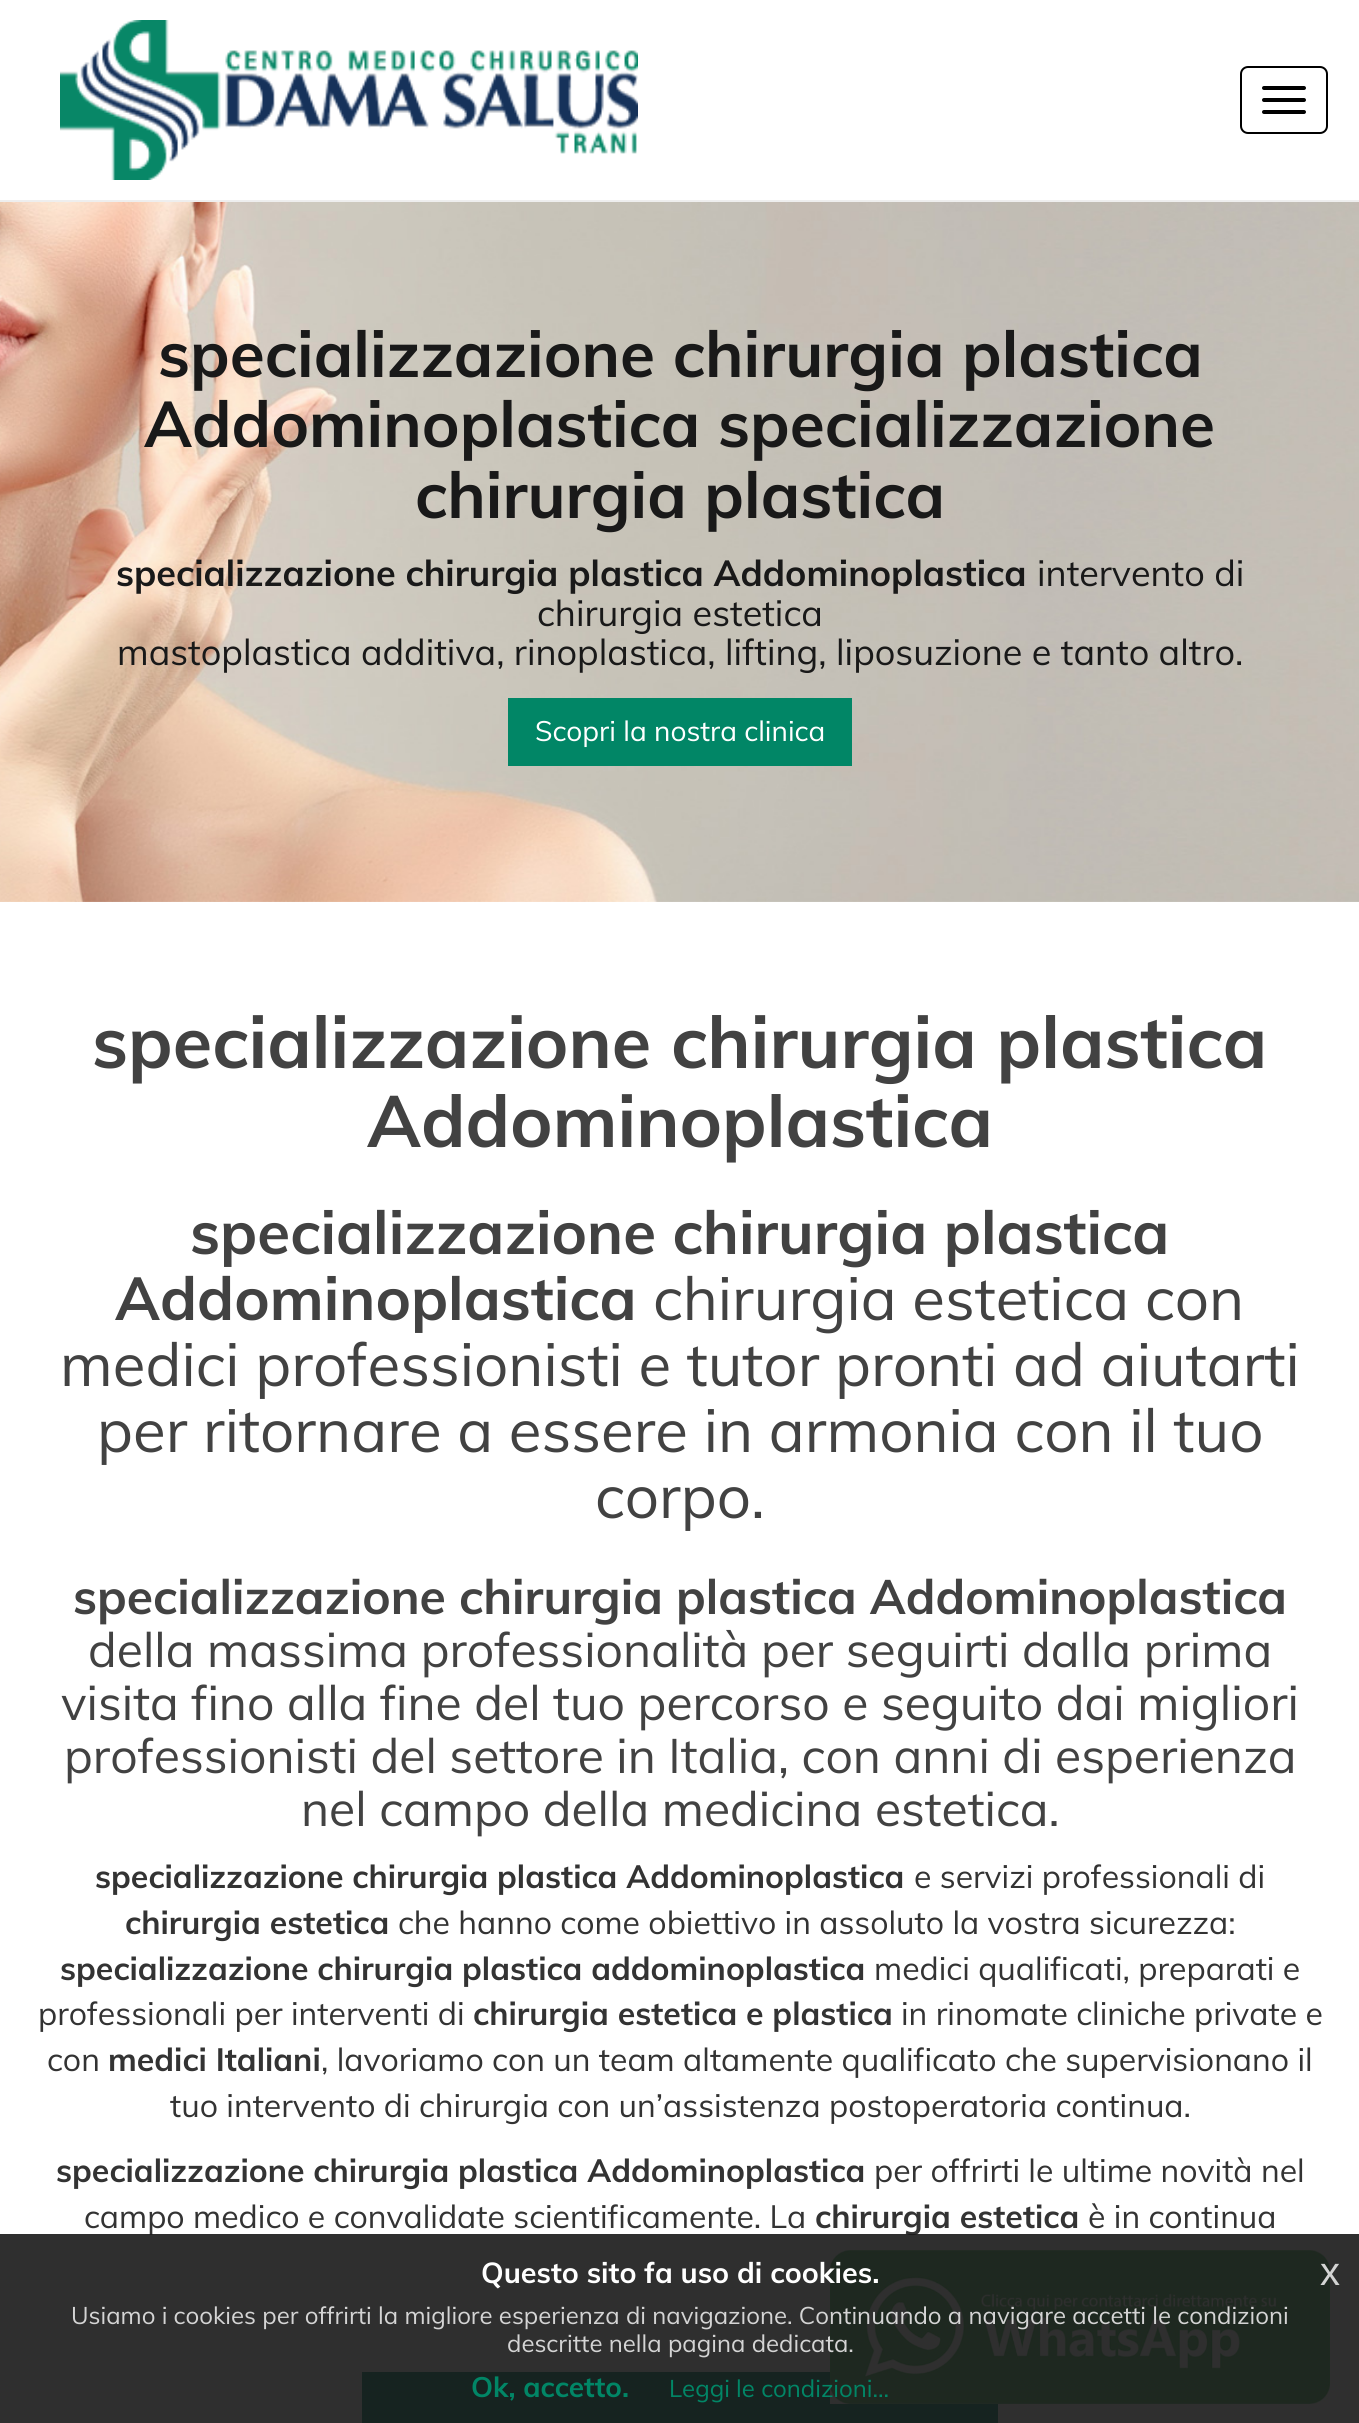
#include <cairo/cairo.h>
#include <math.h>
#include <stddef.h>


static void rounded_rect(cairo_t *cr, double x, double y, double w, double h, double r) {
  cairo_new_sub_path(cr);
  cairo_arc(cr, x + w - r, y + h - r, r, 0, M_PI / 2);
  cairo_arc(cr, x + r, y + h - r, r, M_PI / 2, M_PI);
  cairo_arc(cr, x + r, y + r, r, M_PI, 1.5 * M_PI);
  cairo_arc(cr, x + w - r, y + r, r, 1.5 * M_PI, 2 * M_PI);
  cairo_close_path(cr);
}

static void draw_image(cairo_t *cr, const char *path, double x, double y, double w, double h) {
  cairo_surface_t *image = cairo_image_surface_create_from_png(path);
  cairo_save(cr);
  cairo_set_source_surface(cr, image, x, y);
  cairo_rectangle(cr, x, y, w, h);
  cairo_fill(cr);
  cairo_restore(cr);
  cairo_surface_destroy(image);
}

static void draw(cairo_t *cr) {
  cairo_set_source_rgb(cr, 1, 1, 1);
  cairo_paint(cr);
  cairo_set_source_rgb(cr, 238 / 255.0, 238 / 255.0, 238 / 255.0);
  cairo_rectangle(cr, 0, 200, 1359, 2);
  cairo_fill(cr);
  draw_image(cr, "images/1.png", 60, 20, 578, 160);
  rounded_rect(cr, 1241, 67, 86, 66, 7);
  cairo_set_source_rgb(cr, 0, 0, 0);
  cairo_stroke(cr);
  rounded_rect(cr, 1262, 86, 44, 4, 2);
  cairo_fill(cr);
  rounded_rect(cr, 1262, 98, 44, 4, 2);
  cairo_fill(cr);
  rounded_rect(cr, 1262, 110, 44, 4, 2);
  cairo_fill(cr);
  draw_image(cr, "images/2.png", 0, 202, 1359, 700);
  cairo_set_source_rgb(cr, 1 / 255.0, 134 / 255.0, 102 / 255.0);
  cairo_rectangle(cr, 508, 698, 344, 68);
  cairo_fill(cr);
  cairo_rectangle(cr, 362, 2372, 636, 51);
  cairo_fill(cr);
  draw_image(cr, "images/3.png", 830, 2250, 500, 154);
  cairo_select_font_face(cr, "Muli", CAIRO_FONT_SLANT_NORMAL, CAIRO_FONT_WEIGHT_BOLD);
  cairo_set_font_size(cr, 64);
  cairo_set_source_rgb(cr, 25 / 255.0, 25 / 255.0, 25 / 255.0);
  cairo_move_to(cr, 158, 377);
  cairo_show_text(cr, "specializzazione chirurgia plastica");
  cairo_move_to(cr, 144, 447);
  cairo_show_text(cr, "Addominoplastica specializzazione");
  cairo_move_to(cr, 415, 518);
  cairo_show_text(cr, "chirurgia plastica");
  cairo_set_font_size(cr, 36);
  cairo_move_to(cr, 116, 586);
  cairo_show_text(cr, "specializzazione chirurgia plastica Addominoplastica");
  cairo_select_font_face(cr, "Muli", CAIRO_FONT_SLANT_NORMAL, CAIRO_FONT_WEIGHT_NORMAL);
  cairo_move_to(cr, 1037, 586);
  cairo_show_text(cr, "intervento di");
  cairo_move_to(cr, 537, 626);
  cairo_show_text(cr, "chirurgia estetica");
  cairo_move_to(cr, 117, 665);
  cairo_show_text(cr, "mastoplastica additiva, rinoplastica, lifting, liposuzione e tanto altro.");
  cairo_set_font_size(cr, 28);
  cairo_set_source_rgb(cr, 1, 1, 1);
  cairo_move_to(cr, 535, 741);
  cairo_show_text(cr, "Scopri la nostra clinica");
  cairo_select_font_face(cr, "Muli", CAIRO_FONT_SLANT_NORMAL, CAIRO_FONT_WEIGHT_BOLD);
  cairo_set_font_size(cr, 72);
  cairo_set_source_rgb(cr, 66 / 255.0, 66 / 255.0, 66 / 255.0);
  cairo_move_to(cr, 92, 1068);
  cairo_show_text(cr, "specializzazione chirurgia plastica");
  cairo_move_to(cr, 367, 1147);
  cairo_show_text(cr, "Addominoplastica");
  cairo_set_font_size(cr, 60);
  cairo_move_to(cr, 190, 1254);
  cairo_show_text(cr, "specializzazione chirurgia plastica");
  cairo_move_to(cr, 115, 1320);
  cairo_show_text(cr, "Addominoplastica");
  cairo_select_font_face(cr, "Muli", CAIRO_FONT_SLANT_NORMAL, CAIRO_FONT_WEIGHT_NORMAL);
  cairo_move_to(cr, 653, 1320);
  cairo_show_text(cr, "chirurgia estetica con");
  cairo_move_to(cr, 60, 1386);
  cairo_show_text(cr, "medici professionisti e tutor pronti ad aiutarti");
  cairo_move_to(cr, 97, 1452);
  cairo_show_text(cr, "per ritornare a essere in armonia con il tuo");
  cairo_move_to(cr, 595, 1518);
  cairo_show_text(cr, "corpo.");
  cairo_select_font_face(cr, "Muli", CAIRO_FONT_SLANT_NORMAL, CAIRO_FONT_WEIGHT_BOLD);
  cairo_set_font_size(cr, 48);
  cairo_move_to(cr, 73, 1614);
  cairo_show_text(cr, "specializzazione chirurgia plastica Addominoplastica");
  cairo_select_font_face(cr, "Muli", CAIRO_FONT_SLANT_NORMAL, CAIRO_FONT_WEIGHT_NORMAL);
  cairo_move_to(cr, 88, 1667);
  cairo_show_text(cr, "della massima professionalità per seguirti dalla prima");
  cairo_move_to(cr, 61, 1720);
  cairo_show_text(cr, "visita fino alla fine del tuo percorso e seguito dai migliori");
  cairo_move_to(cr, 64, 1773);
  cairo_show_text(cr, "professionisti del settore in Italia, con anni di esperienza");
  cairo_move_to(cr, 301, 1826);
  cairo_show_text(cr, "nel campo della medicina estetica.");
  cairo_select_font_face(cr, "Muli", CAIRO_FONT_SLANT_NORMAL, CAIRO_FONT_WEIGHT_BOLD);
  cairo_set_font_size(cr, 32);
  cairo_set_source_rgb(cr, 51 / 255.0, 51 / 255.0, 51 / 255.0);
  cairo_move_to(cr, 95, 1888);
  cairo_show_text(cr, "specializzazione chirurgia plastica Addominoplastica");
  cairo_select_font_face(cr, "Muli", CAIRO_FONT_SLANT_NORMAL, CAIRO_FONT_WEIGHT_NORMAL);
  cairo_move_to(cr, 914, 1888);
  cairo_show_text(cr, "e servizi professionali di");
  cairo_select_font_face(cr, "Muli", CAIRO_FONT_SLANT_NORMAL, CAIRO_FONT_WEIGHT_BOLD);
  cairo_move_to(cr, 125, 1934);
  cairo_show_text(cr, "chirurgia estetica");
  cairo_select_font_face(cr, "Muli", CAIRO_FONT_SLANT_NORMAL, CAIRO_FONT_WEIGHT_NORMAL);
  cairo_move_to(cr, 398, 1934);
  cairo_show_text(cr, "che hanno come obiettivo in assoluto la vostra sicurezza:");
  cairo_select_font_face(cr, "Muli", CAIRO_FONT_SLANT_NORMAL, CAIRO_FONT_WEIGHT_BOLD);
  cairo_move_to(cr, 60, 1980);
  cairo_show_text(cr, "specializzazione chirurgia plastica addominoplastica");
  cairo_select_font_face(cr, "Muli", CAIRO_FONT_SLANT_NORMAL, CAIRO_FONT_WEIGHT_NORMAL);
  cairo_move_to(cr, 874, 1980);
  cairo_show_text(cr, "medici qualificati, preparati e");
  cairo_move_to(cr, 38, 2025);
  cairo_show_text(cr, "professionali per interventi di");
  cairo_select_font_face(cr, "Muli", CAIRO_FONT_SLANT_NORMAL, CAIRO_FONT_WEIGHT_BOLD);
  cairo_move_to(cr, 473, 2025);
  cairo_show_text(cr, "chirurgia estetica e plastica");
  cairo_select_font_face(cr, "Muli", CAIRO_FONT_SLANT_NORMAL, CAIRO_FONT_WEIGHT_NORMAL);
  cairo_move_to(cr, 901, 2025);
  cairo_show_text(cr, "in rinomate cliniche private e");
  cairo_move_to(cr, 47, 2071);
  cairo_show_text(cr, "con");
  cairo_select_font_face(cr, "Muli", CAIRO_FONT_SLANT_NORMAL, CAIRO_FONT_WEIGHT_BOLD);
  cairo_move_to(cr, 108, 2071);
  cairo_show_text(cr, "medici Italiani");
  cairo_select_font_face(cr, "Muli", CAIRO_FONT_SLANT_NORMAL, CAIRO_FONT_WEIGHT_NORMAL);
  cairo_move_to(cr, 321, 2071);
  cairo_show_text(cr, ", lavoriamo con un team altamente qualificato che supervisionano il");
  cairo_move_to(cr, 170, 2117);
  cairo_show_text(cr, "tuo intervento di chirurgia con un’assistenza postoperatoria continua.");
  cairo_select_font_face(cr, "Muli", CAIRO_FONT_SLANT_NORMAL, CAIRO_FONT_WEIGHT_BOLD);
  cairo_move_to(cr, 56, 2182);
  cairo_show_text(cr, "specializzazione chirurgia plastica Addominoplastica");
  cairo_select_font_face(cr, "Muli", CAIRO_FONT_SLANT_NORMAL, CAIRO_FONT_WEIGHT_NORMAL);
  cairo_move_to(cr, 874, 2182);
  cairo_show_text(cr, "per offrirti le ultime novità nel");
  cairo_move_to(cr, 84, 2228);
  cairo_show_text(cr, "campo medico e convalidate scientificamente. La");
  cairo_select_font_face(cr, "Muli", CAIRO_FONT_SLANT_NORMAL, CAIRO_FONT_WEIGHT_BOLD);
  cairo_move_to(cr, 815, 2228);
  cairo_show_text(cr, "chirurgia estetica");
  cairo_select_font_face(cr, "Muli", CAIRO_FONT_SLANT_NORMAL, CAIRO_FONT_WEIGHT_NORMAL);
  cairo_move_to(cr, 1088, 2228);
  cairo_show_text(cr, "è in continua");
  cairo_set_source_rgba(cr, 25 / 255.0, 25 / 255.0, 25 / 255.0, 0.9);
  cairo_rectangle(cr, 0, 2234, 1359, 189);
  cairo_fill(cr);
  cairo_select_font_face(cr, "Muli", CAIRO_FONT_SLANT_NORMAL, CAIRO_FONT_WEIGHT_BOLD);
  cairo_set_font_size(cr, 28.75);
  cairo_set_source_rgb(cr, 1, 1, 1);
  cairo_move_to(cr, 481, 2283);
  cairo_show_text(cr, "Questo sito fa uso di cookies.");
  cairo_select_font_face(cr, "Liberation Sans", CAIRO_FONT_SLANT_NORMAL, CAIRO_FONT_WEIGHT_NORMAL);
  cairo_set_font_size(cr, 40);
  cairo_set_source_rgb(cr, 212 / 255.0, 212 / 255.0, 212 / 255.0);
  cairo_move_to(cr, 1320, 2285);
  cairo_show_text(cr, "x");
  cairo_select_font_face(cr, "Muli", CAIRO_FONT_SLANT_NORMAL, CAIRO_FONT_WEIGHT_NORMAL);
  cairo_set_font_size(cr, 24);
  cairo_move_to(cr, 71, 2324);
  cairo_show_text(cr, "Usiamo i cookies per offrirti la migliore esperienza di navigazione. Continuando a navigare accetti le condizioni");
  cairo_move_to(cr, 507, 2352);
  cairo_show_text(cr, "descritte nella pagina dedicata.");
  cairo_select_font_face(cr, "Muli", CAIRO_FONT_SLANT_NORMAL, CAIRO_FONT_WEIGHT_BOLD);
  cairo_set_font_size(cr, 28);
  cairo_set_source_rgb(cr, 1 / 255.0, 134 / 255.0, 102 / 255.0);
  cairo_move_to(cr, 471, 2397);
  cairo_show_text(cr, "Ok, accetto.");
  cairo_select_font_face(cr, "Muli", CAIRO_FONT_SLANT_NORMAL, CAIRO_FONT_WEIGHT_NORMAL);
  cairo_set_font_size(cr, 24);
  cairo_move_to(cr, 669, 2397);
  cairo_show_text(cr, "Leggi le condizioni...");
}

int main(void) {
  cairo_surface_t *surface = cairo_image_surface_create(CAIRO_FORMAT_RGB24, 1359, 2423);
  cairo_t *cr = cairo_create(surface);
  cairo_font_options_t *options = cairo_font_options_create();
  cairo_font_options_set_hint_metrics(options, CAIRO_HINT_METRICS_OFF);
  cairo_font_options_set_hint_style(options, CAIRO_HINT_STYLE_NONE);
  cairo_set_font_options(cr, options);
  cairo_set_miter_limit(cr, 4);
  draw(cr);
  cairo_surface_write_to_png(surface, "out.png");
  cairo_font_options_destroy(options);
  cairo_destroy(cr);
  cairo_surface_destroy(surface);
  return 0;
}
